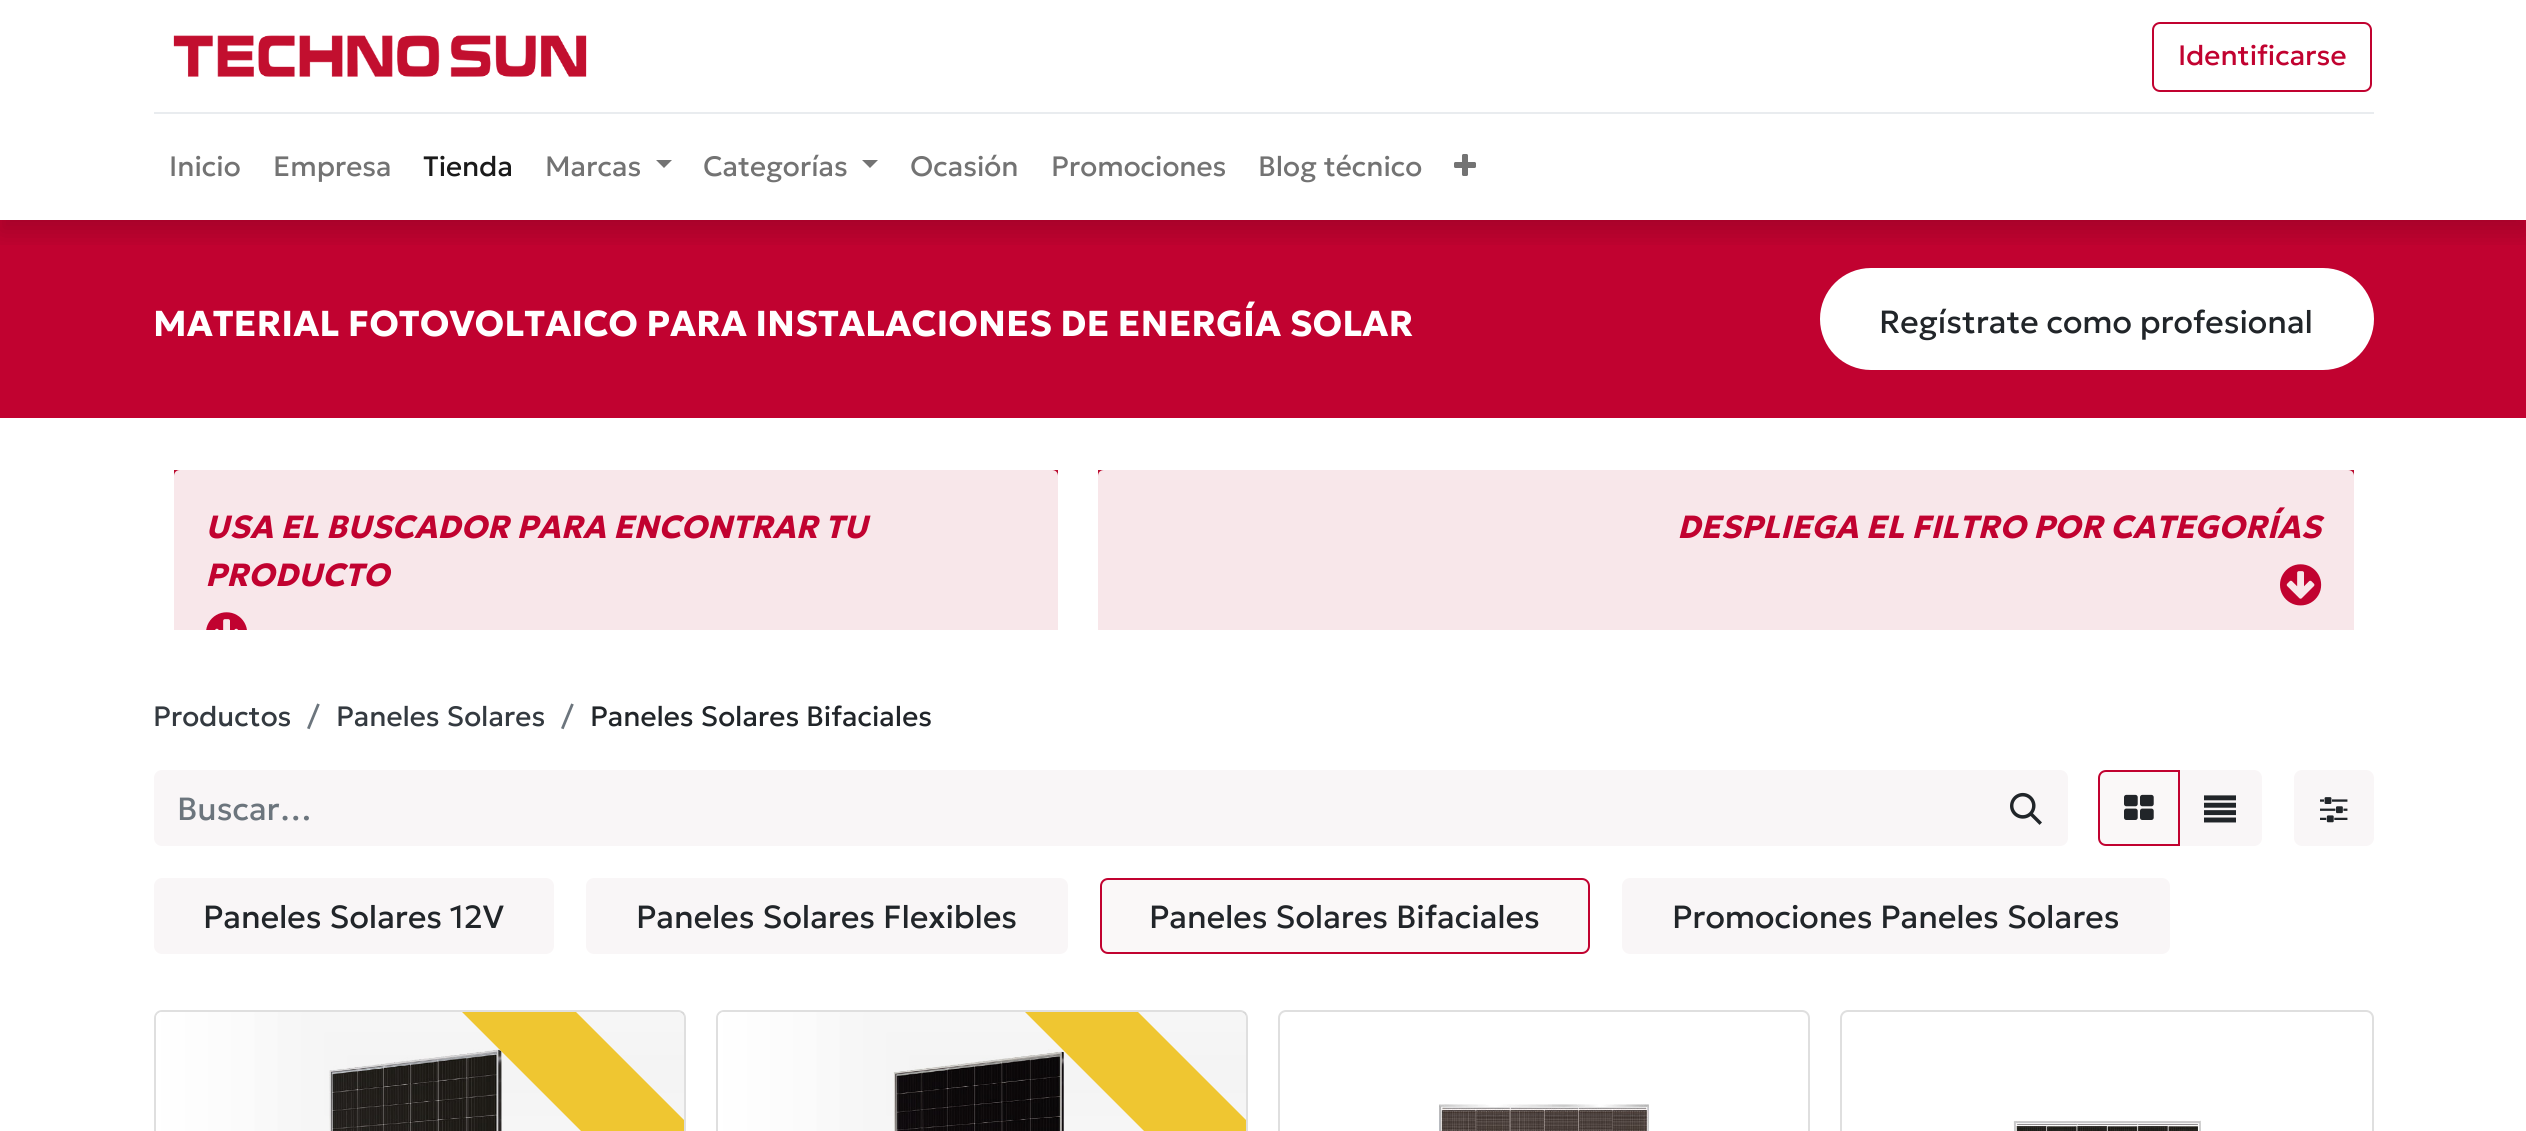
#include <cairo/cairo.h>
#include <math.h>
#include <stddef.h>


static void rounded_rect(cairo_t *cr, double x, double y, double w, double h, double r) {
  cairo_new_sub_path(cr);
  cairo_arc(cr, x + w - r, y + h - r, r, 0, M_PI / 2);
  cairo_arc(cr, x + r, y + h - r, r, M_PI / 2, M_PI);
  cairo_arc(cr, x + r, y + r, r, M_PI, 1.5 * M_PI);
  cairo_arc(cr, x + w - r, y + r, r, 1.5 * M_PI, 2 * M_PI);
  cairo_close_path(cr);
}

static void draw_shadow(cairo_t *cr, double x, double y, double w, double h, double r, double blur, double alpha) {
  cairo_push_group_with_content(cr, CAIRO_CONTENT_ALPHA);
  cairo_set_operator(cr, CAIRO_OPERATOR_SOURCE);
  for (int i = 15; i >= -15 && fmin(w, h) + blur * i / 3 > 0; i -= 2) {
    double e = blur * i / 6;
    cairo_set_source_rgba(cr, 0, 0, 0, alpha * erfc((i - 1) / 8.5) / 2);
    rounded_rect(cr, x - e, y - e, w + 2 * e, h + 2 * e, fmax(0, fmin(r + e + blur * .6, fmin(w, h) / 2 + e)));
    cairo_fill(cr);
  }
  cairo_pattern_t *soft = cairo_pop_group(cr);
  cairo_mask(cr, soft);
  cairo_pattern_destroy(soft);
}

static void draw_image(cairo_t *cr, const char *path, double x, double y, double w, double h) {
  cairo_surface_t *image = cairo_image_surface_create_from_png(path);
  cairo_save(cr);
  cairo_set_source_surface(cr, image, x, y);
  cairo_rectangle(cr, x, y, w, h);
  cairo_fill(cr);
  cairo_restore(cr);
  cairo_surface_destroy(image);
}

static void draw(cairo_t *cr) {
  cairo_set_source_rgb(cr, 1, 1, 1);
  cairo_paint(cr);
  cairo_set_source_rgb(cr, 193 / 255.0, 2 / 255.0, 48 / 255.0);
  cairo_rectangle(cr, 0, 220, 2526, 198);
  cairo_fill(cr);
  cairo_set_source_rgb(cr, 1, 1, 1);
  rounded_rect(cr, 1821, 269, 552, 100, 50);
  cairo_fill_preserve(cr);
  cairo_stroke(cr);
  cairo_save(cr);
  cairo_rectangle(cr, 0, 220, 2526, 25);
  cairo_clip(cr);
  cairo_set_source_rgb(cr, 0, 0, 0);
  draw_shadow(cr, 0, 12, 2526, 220, 0, 12, 0.15);
  cairo_restore(cr);
  draw_image(cr, "images/1.png", 173, 35, 414, 42);
  rounded_rect(cr, 2153, 23, 218, 68, 7);
  cairo_set_source_rgb(cr, 193 / 255.0, 2 / 255.0, 48 / 255.0);
  cairo_stroke(cr);
  cairo_set_source_rgb(cr, 233 / 255.0, 236 / 255.0, 239 / 255.0);
  cairo_rectangle(cr, 154, 112, 2220, 2);
  cairo_fill(cr);
  cairo_set_source_rgb(cr, 115 / 255.0, 115 / 255.0, 115 / 255.0);
  cairo_new_path(cr);
  cairo_move_to(cr, 656, 160);
  cairo_line_to(cr, 672, 160);
  cairo_line_to(cr, 664, 168);
  cairo_close_path(cr);
  cairo_fill(cr);
  cairo_new_path(cr);
  cairo_move_to(cr, 862, 160);
  cairo_line_to(cr, 878, 160);
  cairo_line_to(cr, 870, 168);
  cairo_close_path(cr);
  cairo_fill(cr);
  draw_image(cr, "images/2.png", 1454, 154, 22, 22);
  cairo_set_source_rgb(cr, 186 / 255.0, 12 / 255.0, 47 / 255.0);
  cairo_rectangle(cr, 174, 470, 884, 6);
  cairo_fill(cr);
  cairo_set_source_rgb(cr, 248 / 255.0, 231 / 255.0, 234 / 255.0);
  cairo_new_path(cr);
  cairo_move_to(cr, 180, 470);
  cairo_line_to(cr, 1052, 470);
  cairo_curve_to(cr, 1055.5, 470, 1058, 472.5, 1058, 476);
  cairo_line_to(cr, 1058, 630);
  cairo_line_to(cr, 174, 630);
  cairo_line_to(cr, 174, 476);
  cairo_curve_to(cr, 174, 472.5, 176.5, 470, 180, 470);
  cairo_close_path(cr);
  cairo_fill(cr);
  draw_image(cr, "images/3.png", 206, 612, 41, 18);
  cairo_set_source_rgb(cr, 186 / 255.0, 12 / 255.0, 47 / 255.0);
  cairo_rectangle(cr, 1098, 470, 1256, 6);
  cairo_fill(cr);
  cairo_set_source_rgb(cr, 248 / 255.0, 231 / 255.0, 234 / 255.0);
  cairo_new_path(cr);
  cairo_move_to(cr, 1104, 470);
  cairo_line_to(cr, 2348, 470);
  cairo_curve_to(cr, 2351.5, 470, 2354, 472.5, 2354, 476);
  cairo_line_to(cr, 2354, 630);
  cairo_line_to(cr, 1098, 630);
  cairo_line_to(cr, 1098, 476);
  cairo_curve_to(cr, 1098, 472.5, 1100.5, 470, 1104, 470);
  cairo_close_path(cr);
  cairo_fill(cr);
  draw_image(cr, "images/4.png", 2280, 564, 42, 42);
  rounded_rect(cr, 155, 1011, 530, 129, 7);
  cairo_set_source_rgb(cr, 223 / 255.0, 223 / 255.0, 223 / 255.0);
  cairo_stroke(cr);
  draw_image(cr, "images/5.png", 156, 1012, 528, 119);
  cairo_set_source_rgb(cr, 249 / 255.0, 246 / 255.0, 247 / 255.0);
  cairo_new_path(cr);
  cairo_move_to(cr, 162, 770);
  cairo_line_to(cr, 1986, 770);
  cairo_line_to(cr, 1986, 846);
  cairo_line_to(cr, 162, 846);
  cairo_curve_to(cr, 157.5, 846, 154, 842.5, 154, 838);
  cairo_line_to(cr, 154, 778);
  cairo_curve_to(cr, 154, 773.5, 157.5, 770, 162, 770);
  cairo_close_path(cr);
  cairo_fill(cr);
  rounded_rect(cr, 154, 878, 400, 76, 8);
  cairo_fill(cr);
  rounded_rect(cr, 586, 878, 482, 76, 8);
  cairo_fill(cr);
  cairo_set_source_rgb(cr, 250 / 255.0, 248 / 255.0, 248 / 255.0);
  rounded_rect(cr, 1101, 879, 488, 74, 7);
  cairo_fill_preserve(cr);
  cairo_set_source_rgb(cr, 193 / 255.0, 2 / 255.0, 48 / 255.0);
  cairo_stroke(cr);
  cairo_save(cr);
  cairo_rectangle(cr, 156, 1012, 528, 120);
  cairo_clip(cr);
  cairo_set_source_rgb(cr, 0, 0, 0);
  draw_shadow(cr, 266, 974, 672, 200, 0, 70, 0.05);
  cairo_restore(cr);
  cairo_save(cr);
  cairo_rectangle(cr, 156, 1012, 528, 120);
  cairo_clip(cr);
  cairo_set_source_rgb(cr, 239 / 255.0, 198 / 255.0, 49 / 255.0);
  cairo_new_path(cr);
  cairo_move_to(cr, 435, 871);
  cairo_line_to(cr, 825, 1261);
  cairo_line_to(cr, 768, 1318);
  cairo_line_to(cr, 378, 928);
  cairo_close_path(cr);
  cairo_fill(cr);
  cairo_restore(cr);
  rounded_rect(cr, 717, 1011, 530, 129, 7);
  cairo_set_source_rgb(cr, 223 / 255.0, 223 / 255.0, 223 / 255.0);
  cairo_stroke(cr);
  draw_image(cr, "images/6.png", 718, 1012, 528, 119);
  cairo_set_source_rgb(cr, 249 / 255.0, 246 / 255.0, 247 / 255.0);
  rounded_rect(cr, 1622, 878, 548, 76, 8);
  cairo_fill(cr);
  cairo_save(cr);
  cairo_rectangle(cr, 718, 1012, 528, 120);
  cairo_clip(cr);
  cairo_set_source_rgb(cr, 0, 0, 0);
  draw_shadow(cr, 828, 974, 672, 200, 0, 70, 0.05);
  cairo_restore(cr);
  cairo_save(cr);
  cairo_rectangle(cr, 718, 1012, 528, 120);
  cairo_clip(cr);
  cairo_set_source_rgb(cr, 239 / 255.0, 198 / 255.0, 49 / 255.0);
  cairo_new_path(cr);
  cairo_move_to(cr, 997, 871);
  cairo_line_to(cr, 1387, 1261);
  cairo_line_to(cr, 1331, 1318);
  cairo_line_to(cr, 941, 928);
  cairo_close_path(cr);
  cairo_fill(cr);
  cairo_restore(cr);
  rounded_rect(cr, 1279, 1011, 530, 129, 7);
  cairo_set_source_rgb(cr, 223 / 255.0, 223 / 255.0, 223 / 255.0);
  cairo_stroke(cr);
  draw_image(cr, "images/7.png", 1439, 1104, 210, 27);
  rounded_rect(cr, 1841, 1011, 532, 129, 7);
  cairo_stroke(cr);
  draw_image(cr, "images/8.png", 2013, 1120, 188, 11);
  cairo_set_source_rgb(cr, 249 / 255.0, 246 / 255.0, 247 / 255.0);
  cairo_new_path(cr);
  cairo_move_to(cr, 1984, 770);
  cairo_line_to(cr, 2060, 770);
  cairo_curve_to(cr, 2064.5, 770, 2068, 773.5, 2068, 778);
  cairo_line_to(cr, 2068, 838);
  cairo_curve_to(cr, 2068, 842.5, 2064.5, 846, 2060, 846);
  cairo_line_to(cr, 1984, 846);
  cairo_close_path(cr);
  cairo_fill(cr);
  draw_image(cr, "images/9.png", 2010, 792, 32, 33);
  cairo_new_path(cr);
  cairo_move_to(cr, 2178, 770);
  cairo_line_to(cr, 2254, 770);
  cairo_curve_to(cr, 2258.5, 770, 2262, 773.5, 2262, 778);
  cairo_line_to(cr, 2262, 838);
  cairo_curve_to(cr, 2262, 842.5, 2258.5, 846, 2254, 846);
  cairo_line_to(cr, 2178, 846);
  cairo_close_path(cr);
  cairo_fill(cr);
  cairo_set_source_rgb(cr, 250 / 255.0, 248 / 255.0, 248 / 255.0);
  cairo_new_path(cr);
  cairo_move_to(cr, 2106, 771);
  cairo_line_to(cr, 2179, 771);
  cairo_line_to(cr, 2179, 845);
  cairo_line_to(cr, 2106, 845);
  cairo_curve_to(cr, 2102, 845, 2099, 842, 2099, 838);
  cairo_line_to(cr, 2099, 778);
  cairo_curve_to(cr, 2099, 774, 2102, 771, 2106, 771);
  cairo_close_path(cr);
  cairo_fill_preserve(cr);
  cairo_set_source_rgb(cr, 193 / 255.0, 2 / 255.0, 48 / 255.0);
  cairo_stroke(cr);
  draw_image(cr, "images/10.png", 2124, 794, 30, 26);
  draw_image(cr, "images/11.png", 2204, 795, 32, 28);
  cairo_set_source_rgb(cr, 249 / 255.0, 246 / 255.0, 247 / 255.0);
  rounded_rect(cr, 2294, 770, 80, 76, 8);
  cairo_fill(cr);
  draw_image(cr, "images/12.png", 2320, 797, 28, 26);
  cairo_select_font_face(cr, "Geologica", CAIRO_FONT_SLANT_NORMAL, CAIRO_FONT_WEIGHT_NORMAL);
  cairo_set_font_size(cr, 28);
  cairo_set_source_rgb(cr, 193 / 255.0, 2 / 255.0, 48 / 255.0);
  cairo_move_to(cr, 2178, 65);
  cairo_show_text(cr, "Identificarse");
  cairo_set_source_rgb(cr, 115 / 255.0, 115 / 255.0, 115 / 255.0);
  cairo_move_to(cr, 169, 176);
  cairo_show_text(cr, "Inicio");
  cairo_move_to(cr, 273, 176);
  cairo_show_text(cr, "Empresa");
  cairo_set_source_rgb(cr, 26 / 255.0, 26 / 255.0, 26 / 255.0);
  cairo_move_to(cr, 423, 176);
  cairo_show_text(cr, "Tienda");
  cairo_set_source_rgb(cr, 115 / 255.0, 115 / 255.0, 115 / 255.0);
  cairo_move_to(cr, 545, 176);
  cairo_show_text(cr, "Marcas");
  cairo_move_to(cr, 703, 176);
  cairo_show_text(cr, "Categorías");
  cairo_move_to(cr, 910, 176);
  cairo_show_text(cr, "Ocasión");
  cairo_move_to(cr, 1051, 176);
  cairo_show_text(cr, "Promociones");
  cairo_move_to(cr, 1258, 176);
  cairo_show_text(cr, "Blog técnico");
  cairo_select_font_face(cr, "Geologica", CAIRO_FONT_SLANT_NORMAL, CAIRO_FONT_WEIGHT_BOLD);
  cairo_set_font_size(cr, 36);
  cairo_set_source_rgb(cr, 1, 1, 1);
  cairo_move_to(cr, 153, 336);
  cairo_show_text(cr, "MATERIAL FOTOVOLTAICO PARA INSTALACIONES DE ENERGÍA SOLAR");
  cairo_select_font_face(cr, "Geologica", CAIRO_FONT_SLANT_NORMAL, CAIRO_FONT_WEIGHT_NORMAL);
  cairo_set_font_size(cr, 32);
  cairo_set_source_rgb(cr, 33 / 255.0, 37 / 255.0, 41 / 255.0);
  cairo_move_to(cr, 1879, 333);
  cairo_show_text(cr, "Regístrate como profesional");
  cairo_select_font_face(cr, "Geologica", CAIRO_FONT_SLANT_ITALIC, CAIRO_FONT_WEIGHT_BOLD);
  cairo_set_source_rgb(cr, 193 / 255.0, 2 / 255.0, 48 / 255.0);
  cairo_move_to(cr, 205, 538);
  cairo_show_text(cr, "USA EL BUSCADOR PARA ENCONTRAR TU");
  cairo_move_to(cr, 205, 586);
  cairo_show_text(cr, "PRODUCTO");
  cairo_move_to(cr, 1677, 538);
  cairo_show_text(cr, "DESPLIEGA EL FILTRO POR CATEGORÍAS");
  cairo_select_font_face(cr, "Geologica", CAIRO_FONT_SLANT_NORMAL, CAIRO_FONT_WEIGHT_NORMAL);
  cairo_set_font_size(cr, 28);
  cairo_set_source_rgb(cr, 52 / 255.0, 58 / 255.0, 64 / 255.0);
  cairo_move_to(cr, 153, 726);
  cairo_show_text(cr, "Productos");
  cairo_set_source_rgb(cr, 108 / 255.0, 117 / 255.0, 125 / 255.0);
  cairo_move_to(cr, 307, 726);
  cairo_show_text(cr, "/");
  cairo_set_source_rgb(cr, 52 / 255.0, 58 / 255.0, 64 / 255.0);
  cairo_move_to(cr, 336, 726);
  cairo_show_text(cr, "Paneles Solares");
  cairo_set_source_rgb(cr, 108 / 255.0, 117 / 255.0, 125 / 255.0);
  cairo_move_to(cr, 561, 726);
  cairo_show_text(cr, "/");
  cairo_set_source_rgb(cr, 33 / 255.0, 37 / 255.0, 41 / 255.0);
  cairo_move_to(cr, 590, 726);
  cairo_show_text(cr, "Paneles Solares Bifaciales");
  cairo_set_font_size(cr, 32);
  cairo_set_source_rgb(cr, 108 / 255.0, 117 / 255.0, 125 / 255.0);
  cairo_move_to(cr, 177, 820);
  cairo_show_text(cr, "Buscar…");
  cairo_set_source_rgb(cr, 33 / 255.0, 37 / 255.0, 41 / 255.0);
  cairo_move_to(cr, 203, 928);
  cairo_show_text(cr, "Paneles Solares 12V");
  cairo_move_to(cr, 636, 928);
  cairo_show_text(cr, "Paneles Solares Flexibles");
  cairo_move_to(cr, 1149, 928);
  cairo_show_text(cr, "Paneles Solares Bifaciales");
  cairo_move_to(cr, 1672, 928);
  cairo_show_text(cr, "Promociones Paneles Solares");
}

int main(void) {
  cairo_surface_t *surface = cairo_image_surface_create(CAIRO_FORMAT_RGB24, 2526, 1131);
  cairo_t *cr = cairo_create(surface);
  cairo_font_options_t *options = cairo_font_options_create();
  cairo_font_options_set_hint_metrics(options, CAIRO_HINT_METRICS_OFF);
  cairo_font_options_set_hint_style(options, CAIRO_HINT_STYLE_NONE);
  cairo_set_font_options(cr, options);
  cairo_set_miter_limit(cr, 4);
  draw(cr);
  cairo_surface_write_to_png(surface, "out.png");
  cairo_font_options_destroy(options);
  cairo_destroy(cr);
  cairo_surface_destroy(surface);
  return 0;
}
